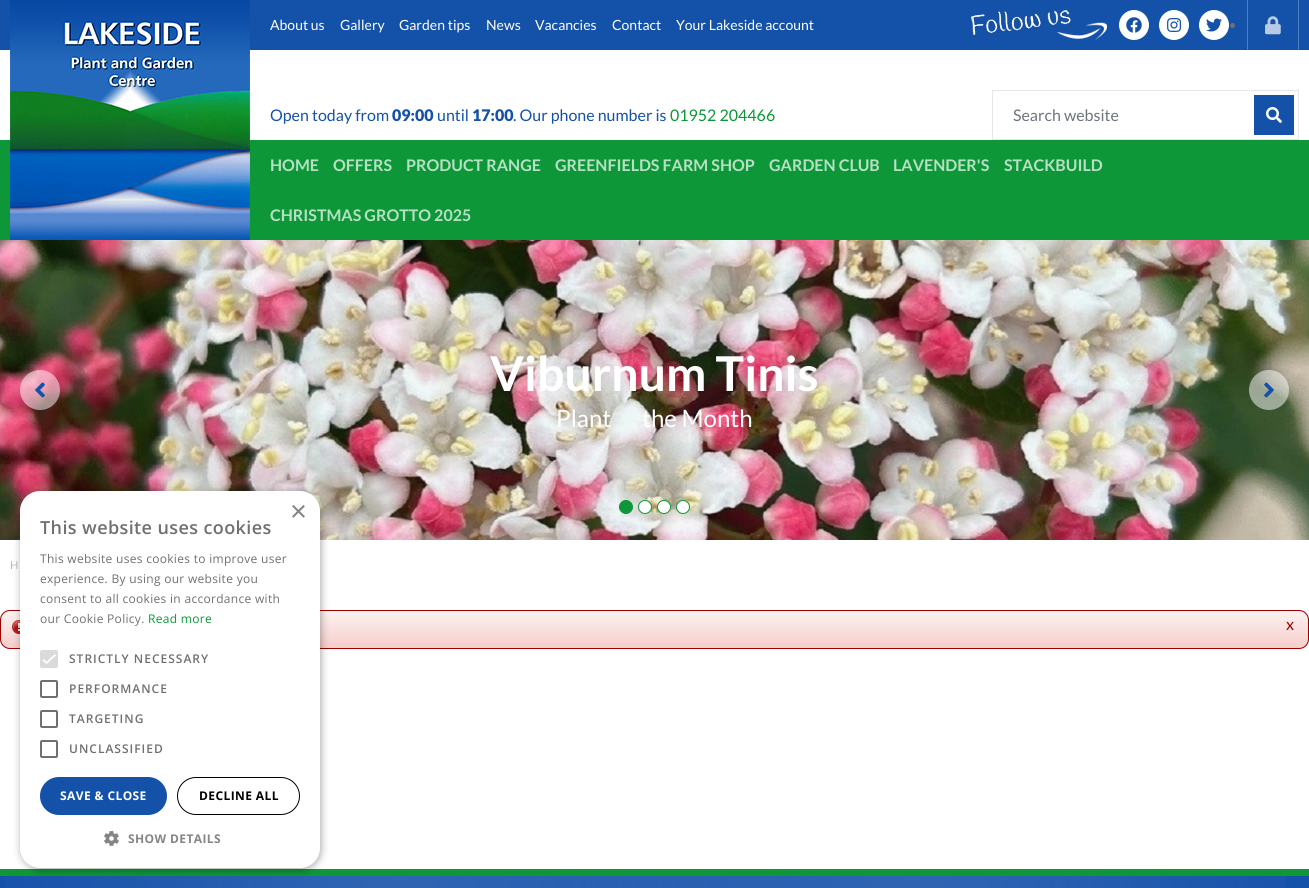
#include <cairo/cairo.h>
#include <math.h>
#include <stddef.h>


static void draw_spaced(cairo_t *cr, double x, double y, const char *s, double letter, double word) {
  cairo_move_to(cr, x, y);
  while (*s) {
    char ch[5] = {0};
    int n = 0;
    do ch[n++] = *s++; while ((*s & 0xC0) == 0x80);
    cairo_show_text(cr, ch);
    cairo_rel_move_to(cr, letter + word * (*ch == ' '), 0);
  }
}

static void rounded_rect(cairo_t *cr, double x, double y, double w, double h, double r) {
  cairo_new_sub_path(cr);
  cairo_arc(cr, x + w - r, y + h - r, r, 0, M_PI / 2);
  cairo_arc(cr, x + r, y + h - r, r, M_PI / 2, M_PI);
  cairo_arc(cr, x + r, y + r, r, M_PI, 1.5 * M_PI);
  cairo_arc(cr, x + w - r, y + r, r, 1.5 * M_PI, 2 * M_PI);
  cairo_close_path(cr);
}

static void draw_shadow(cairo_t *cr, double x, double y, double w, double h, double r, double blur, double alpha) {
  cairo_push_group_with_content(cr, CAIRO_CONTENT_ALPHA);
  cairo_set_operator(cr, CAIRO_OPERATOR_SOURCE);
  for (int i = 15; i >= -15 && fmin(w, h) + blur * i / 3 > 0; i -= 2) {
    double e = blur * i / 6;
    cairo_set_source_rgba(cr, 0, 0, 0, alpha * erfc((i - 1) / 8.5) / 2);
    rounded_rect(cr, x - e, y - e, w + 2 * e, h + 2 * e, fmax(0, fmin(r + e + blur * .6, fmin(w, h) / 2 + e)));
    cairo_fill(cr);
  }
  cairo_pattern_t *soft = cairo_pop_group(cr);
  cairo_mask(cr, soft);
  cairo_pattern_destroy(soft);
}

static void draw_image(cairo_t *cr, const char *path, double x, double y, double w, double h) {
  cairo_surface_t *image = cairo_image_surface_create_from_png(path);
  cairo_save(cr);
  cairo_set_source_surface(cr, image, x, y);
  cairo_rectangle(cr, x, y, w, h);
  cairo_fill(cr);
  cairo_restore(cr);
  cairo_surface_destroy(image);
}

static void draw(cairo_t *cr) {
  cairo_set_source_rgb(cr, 1, 1, 1);
  cairo_paint(cr);
  cairo_set_source_rgb(cr, 20 / 255.0, 81 / 255.0, 169 / 255.0);
  cairo_rectangle(cr, 0, 0, 1309, 50);
  cairo_fill(cr);
  draw_image(cr, "images/1.png", 971, 10, 136, 30);
  cairo_set_source_rgb(cr, 1, 1, 1);
  cairo_arc(cr, 1134, 25, 15, 0, 2 * M_PI);
  cairo_fill(cr);
  draw_image(cr, "images/2.png", 1126, 17, 16, 16);
  cairo_arc(cr, 1174, 25, 15, 0, 2 * M_PI);
  cairo_fill(cr);
  draw_image(cr, "images/3.png", 1167, 18, 15, 14);
  cairo_arc(cr, 1214, 25, 15, 0, 2 * M_PI);
  cairo_fill(cr);
  draw_image(cr, "images/4.png", 1206, 18, 16, 14);
  cairo_set_source_rgb(cr, 13 / 255.0, 151 / 255.0, 56 / 255.0);
  cairo_rectangle(cr, 0, 140, 1309, 100);
  cairo_fill(cr);
  draw_image(cr, "images/5.png", 10, 0, 240, 240);
  cairo_set_source_rgb(cr, 79 / 255.0, 125 / 255.0, 191 / 255.0);
  cairo_rectangle(cr, 1298, 0, 1, 50);
  cairo_fill(cr);
  cairo_rectangle(cr, 1247, 0, 1, 50);
  cairo_fill(cr);
  cairo_set_source_rgb(cr, 112 / 255.0, 112 / 255.0, 112 / 255.0);
  cairo_arc(cr, 1232.5, 25.5, 2.5, 0, 2 * M_PI);
  cairo_fill(cr);
  draw_image(cr, "images/6.png", 1265, 16, 16, 19);
  cairo_rectangle(cr, 992.5, 90.5, 306, 49);
  cairo_set_source_rgb(cr, 230 / 255.0, 230 / 255.0, 230 / 255.0);
  cairo_set_line_width(cr, 1);
  cairo_stroke(cr);
  cairo_set_source_rgb(cr, 20 / 255.0, 81 / 255.0, 169 / 255.0);
  cairo_rectangle(cr, 1254, 95, 40, 40);
  cairo_fill(cr);
  draw_image(cr, "images/7.png", 1266, 107, 16, 16);
  cairo_set_source_rgb(cr, 245 / 255.0, 208 / 255.0, 205 / 255.0);
  rounded_rect(cr, 0, 610, 1309, 39, 10);
  cairo_fill(cr);
  draw_image(cr, "images/8.png", 0, 611, 1309, 35);
  rounded_rect(cr, 0.5, 610.5, 1308, 38, 9.5);
  cairo_set_source_rgb(cr, 153 / 255.0, 0, 0);
  cairo_stroke(cr);
  draw_image(cr, "images/9.png", 12, 620, 8, 14);
  draw_image(cr, "images/11.png", 0, 240, 1309, 300);
  cairo_set_source_rgba(cr, 1, 1, 1, 0.5);
  cairo_arc(cr, 40, 390, 20, 0, 2 * M_PI);
  cairo_fill(cr);
  draw_image(cr, "images/10.png", 35, 382, 10, 16);
  cairo_arc(cr, 1269, 390, 20, 0, 2 * M_PI);
  cairo_fill(cr);
  draw_image(cr, "images/12.png", 1264, 382, 10, 16);
  cairo_set_source_rgb(cr, 13 / 255.0, 151 / 255.0, 56 / 255.0);
  cairo_arc(cr, 626, 507, 6.5, 0, 2 * M_PI);
  cairo_fill_preserve(cr);
  cairo_stroke(cr);
  cairo_set_source_rgb(cr, 1, 1, 1);
  cairo_arc(cr, 645, 507, 6.5, 0, 2 * M_PI);
  cairo_fill_preserve(cr);
  cairo_set_source_rgb(cr, 13 / 255.0, 151 / 255.0, 56 / 255.0);
  cairo_stroke(cr);
  cairo_set_source_rgb(cr, 1, 1, 1);
  cairo_arc(cr, 664, 507, 6.5, 0, 2 * M_PI);
  cairo_fill_preserve(cr);
  cairo_set_source_rgb(cr, 13 / 255.0, 151 / 255.0, 56 / 255.0);
  cairo_stroke(cr);
  cairo_set_source_rgb(cr, 1, 1, 1);
  cairo_arc(cr, 683, 507, 6.5, 0, 2 * M_PI);
  cairo_fill_preserve(cr);
  cairo_set_source_rgb(cr, 13 / 255.0, 151 / 255.0, 56 / 255.0);
  cairo_stroke(cr);
  cairo_set_source_rgb(cr, 20 / 255.0, 81 / 255.0, 169 / 255.0);
  cairo_rectangle(cr, 0, 876, 1309, 12);
  cairo_fill(cr);
  draw_image(cr, "images/13.png", 5, 876, 1282, 12);
  cairo_save(cr);
  cairo_rectangle(cr, 0, 869, 1309, 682);
  cairo_clip(cr);
  cairo_set_source_rgb(cr, 13 / 255.0, 151 / 255.0, 56 / 255.0);
  cairo_new_path(cr);
  cairo_move_to(cr, 654, 669);
  cairo_curve_to(cr, 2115, 669, 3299, 762, 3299, 876);
  cairo_line_to(cr, -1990, 876);
  cairo_curve_to(cr, -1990, 762, -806, 669, 654, 669);
  cairo_close_path(cr);
  cairo_fill(cr);
  cairo_restore(cr);
  cairo_set_source_rgb(cr, 0, 0, 0);
  draw_shadow(cr, 21, 493, 300, 377, 20, 4, 0.35);
  cairo_set_source_rgb(cr, 1, 1, 1);
  rounded_rect(cr, 20, 491, 300, 377, 20);
  cairo_fill(cr);
  cairo_set_source_rgb(cr, 218 / 255.0, 218 / 255.0, 218 / 255.0);
  rounded_rect(cr, 40, 650, 18, 18, 2);
  cairo_fill(cr);
  cairo_new_path(cr);
  cairo_move_to(cr, 43, 659.5);
  cairo_line_to(cr, 46.5, 663);
  cairo_line_to(cr, 55.5, 654.5);
  cairo_set_source_rgb(cr, 1, 1, 1);
  cairo_set_line_width(cr, 1.8);
  cairo_stroke(cr);
  rounded_rect(cr, 41, 681, 16, 16, 1);
  cairo_set_source_rgb(cr, 112 / 255.0, 112 / 255.0, 112 / 255.0);
  cairo_set_line_width(cr, 2);
  cairo_stroke(cr);
  rounded_rect(cr, 41, 711, 16, 16, 1);
  cairo_stroke(cr);
  rounded_rect(cr, 41, 741, 16, 16, 1);
  cairo_stroke(cr);
  cairo_set_source_rgb(cr, 20 / 255.0, 81 / 255.0, 169 / 255.0);
  rounded_rect(cr, 40, 777, 127, 38, 19);
  cairo_fill(cr);
  rounded_rect(cr, 177.5, 777.5, 122, 37, 18.5);
  cairo_set_source_rgb(cr, 0, 0, 0);
  cairo_set_line_width(cr, 1);
  cairo_stroke(cr);
  draw_image(cr, "images/14.png", 104, 831, 15, 15);
  cairo_select_font_face(cr, "Lato", CAIRO_FONT_SLANT_NORMAL, CAIRO_FONT_WEIGHT_NORMAL);
  cairo_set_font_size(cr, 14);
  cairo_set_source_rgb(cr, 1, 1, 1);
  cairo_move_to(cr, 270, 30);
  cairo_show_text(cr, "About us");
  cairo_move_to(cr, 340, 30);
  cairo_show_text(cr, "Gallery");
  cairo_move_to(cr, 399, 30);
  cairo_show_text(cr, "Garden tips");
  cairo_move_to(cr, 486, 30);
  cairo_show_text(cr, "News");
  cairo_move_to(cr, 535, 30);
  cairo_show_text(cr, "Vacancies");
  cairo_move_to(cr, 612, 30);
  cairo_show_text(cr, "Contact");
  cairo_move_to(cr, 676, 30);
  cairo_show_text(cr, "Your Lakeside account");
  cairo_set_font_size(cr, 16);
  cairo_set_source_rgb(cr, 20 / 255.0, 81 / 255.0, 169 / 255.0);
  cairo_move_to(cr, 270, 121);
  cairo_show_text(cr, "Open today from");
  cairo_select_font_face(cr, "Lato Black", CAIRO_FONT_SLANT_NORMAL, CAIRO_FONT_WEIGHT_NORMAL);
  cairo_move_to(cr, 392, 121);
  cairo_show_text(cr, "09:00");
  cairo_select_font_face(cr, "Lato", CAIRO_FONT_SLANT_NORMAL, CAIRO_FONT_WEIGHT_NORMAL);
  cairo_move_to(cr, 437, 121);
  cairo_show_text(cr, "until");
  cairo_select_font_face(cr, "Lato Black", CAIRO_FONT_SLANT_NORMAL, CAIRO_FONT_WEIGHT_NORMAL);
  cairo_move_to(cr, 472, 121);
  cairo_show_text(cr, "17:00");
  cairo_select_font_face(cr, "Lato", CAIRO_FONT_SLANT_NORMAL, CAIRO_FONT_WEIGHT_NORMAL);
  cairo_move_to(cr, 513, 121);
  cairo_show_text(cr, ". Our phone number is");
  cairo_set_source_rgb(cr, 13 / 255.0, 151 / 255.0, 56 / 255.0);
  cairo_move_to(cr, 670, 121);
  cairo_show_text(cr, "01952 204466");
  cairo_set_source_rgb(cr, 108 / 255.0, 117 / 255.0, 125 / 255.0);
  cairo_move_to(cr, 1013, 121);
  cairo_show_text(cr, "Search website");
  cairo_select_font_face(cr, "Lato", CAIRO_FONT_SLANT_NORMAL, CAIRO_FONT_WEIGHT_BOLD);
  cairo_set_source_rgb(cr, 182 / 255.0, 224 / 255.0, 195 / 255.0);
  cairo_move_to(cr, 270, 171);
  cairo_show_text(cr, "HOME");
  cairo_move_to(cr, 333, 171);
  cairo_show_text(cr, "OFFERS");
  cairo_move_to(cr, 406, 171);
  cairo_show_text(cr, "PRODUCT RANGE");
  cairo_move_to(cr, 555, 171);
  cairo_show_text(cr, "GREENFIELDS FARM SHOP");
  cairo_move_to(cr, 769, 171);
  cairo_show_text(cr, "GARDEN CLUB");
  cairo_move_to(cr, 893, 171);
  cairo_show_text(cr, "LAVENDER'S");
  cairo_move_to(cr, 1004, 171);
  cairo_show_text(cr, "STACKBUILD");
  cairo_move_to(cr, 270, 221);
  cairo_show_text(cr, "CHRISTMAS GROTTO 2025");
  cairo_select_font_face(cr, "Lato", CAIRO_FONT_SLANT_NORMAL, CAIRO_FONT_WEIGHT_NORMAL);
  cairo_set_source_rgb(cr, 153 / 255.0, 0, 0);
  cairo_move_to(cr, 1286, 630);
  cairo_show_text(cr, "x");
  cairo_select_font_face(cr, "Lato", CAIRO_FONT_SLANT_NORMAL, CAIRO_FONT_WEIGHT_BOLD);
  cairo_set_font_size(cr, 48);
  cairo_set_source_rgb(cr, 1, 1, 1);
  cairo_move_to(cr, 490, 391);
  cairo_show_text(cr, "Viburnum Tinis");
  cairo_select_font_face(cr, "Lato", CAIRO_FONT_SLANT_NORMAL, CAIRO_FONT_WEIGHT_NORMAL);
  cairo_set_font_size(cr, 24);
  cairo_move_to(cr, 556, 427);
  cairo_show_text(cr, "Plant");
  cairo_move_to(cr, 642, 427);
  cairo_show_text(cr, "the Month");
  cairo_set_font_size(cr, 11);
  cairo_set_source_rgb(cr, 184 / 255.0, 184 / 255.0, 184 / 255.0);
  cairo_move_to(cr, 10, 569);
  cairo_show_text(cr, "H");
  cairo_select_font_face(cr, "Liberation Sans", CAIRO_FONT_SLANT_NORMAL, CAIRO_FONT_WEIGHT_NORMAL);
  cairo_set_font_size(cr, 29);
  cairo_set_source_rgb(cr, 133 / 255.0, 133 / 255.0, 133 / 255.0);
  cairo_move_to(cr, 290, 521);
  cairo_show_text(cr, "×");
  cairo_select_font_face(cr, "Open Sans SemiBold", CAIRO_FONT_SLANT_NORMAL, CAIRO_FONT_WEIGHT_NORMAL);
  cairo_set_font_size(cr, 18);
  cairo_set_source_rgb(cr, 112 / 255.0, 112 / 255.0, 112 / 255.0);
  draw_spaced(cr, 40, 534, "This website uses cookies", 0.4, 0);
  cairo_select_font_face(cr, "Open Sans", CAIRO_FONT_SLANT_NORMAL, CAIRO_FONT_WEIGHT_NORMAL);
  cairo_set_font_size(cr, 12);
  draw_spaced(cr, 40, 563, "This website uses cookies to improve user", 0.3, 0);
  draw_spaced(cr, 40, 583, "experience. By using our website you", 0.3, 0);
  draw_spaced(cr, 40, 603, "consent to all cookies in accordance with", 0.3, 0);
  draw_spaced(cr, 40, 623, "our Cookie Policy.", 0.3, 0);
  cairo_set_source_rgb(cr, 13 / 255.0, 151 / 255.0, 56 / 255.0);
  draw_spaced(cr, 148, 623, "Read more", 0.3, 0);
  cairo_select_font_face(cr, "Open Sans SemiBold", CAIRO_FONT_SLANT_NORMAL, CAIRO_FONT_WEIGHT_NORMAL);
  cairo_set_source_rgb(cr, 112 / 255.0, 112 / 255.0, 112 / 255.0);
  draw_spaced(cr, 69, 663, "STRICTLY NECESSARY", 1, 0);
  draw_spaced(cr, 69, 693, "PERFORMANCE", 1, 0);
  draw_spaced(cr, 69, 723, "TARGETING", 1, 0);
  draw_spaced(cr, 69, 753, "UNCLASSIFIED", 1, 0);
  cairo_select_font_face(cr, "Open Sans", CAIRO_FONT_SLANT_NORMAL, CAIRO_FONT_WEIGHT_BOLD);
  cairo_set_source_rgb(cr, 1, 1, 1);
  draw_spaced(cr, 60, 800, "SAVE & CLOSE", 0.4, 0);
  cairo_set_source_rgb(cr, 0, 0, 0);
  draw_spaced(cr, 199, 800, "DECLINE ALL", 0.4, 0);
  cairo_set_source_rgb(cr, 133 / 255.0, 133 / 255.0, 133 / 255.0);
  draw_spaced(cr, 128, 843, "SHOW DETAILS", 0.4, 0);
}

int main(void) {
  cairo_surface_t *surface = cairo_image_surface_create(CAIRO_FORMAT_RGB24, 1309, 888);
  cairo_t *cr = cairo_create(surface);
  cairo_font_options_t *options = cairo_font_options_create();
  cairo_font_options_set_hint_metrics(options, CAIRO_HINT_METRICS_OFF);
  cairo_font_options_set_hint_style(options, CAIRO_HINT_STYLE_NONE);
  cairo_set_font_options(cr, options);
  cairo_set_miter_limit(cr, 4);
  draw(cr);
  cairo_surface_write_to_png(surface, "out.png");
  cairo_font_options_destroy(options);
  cairo_destroy(cr);
  cairo_surface_destroy(surface);
  return 0;
}
